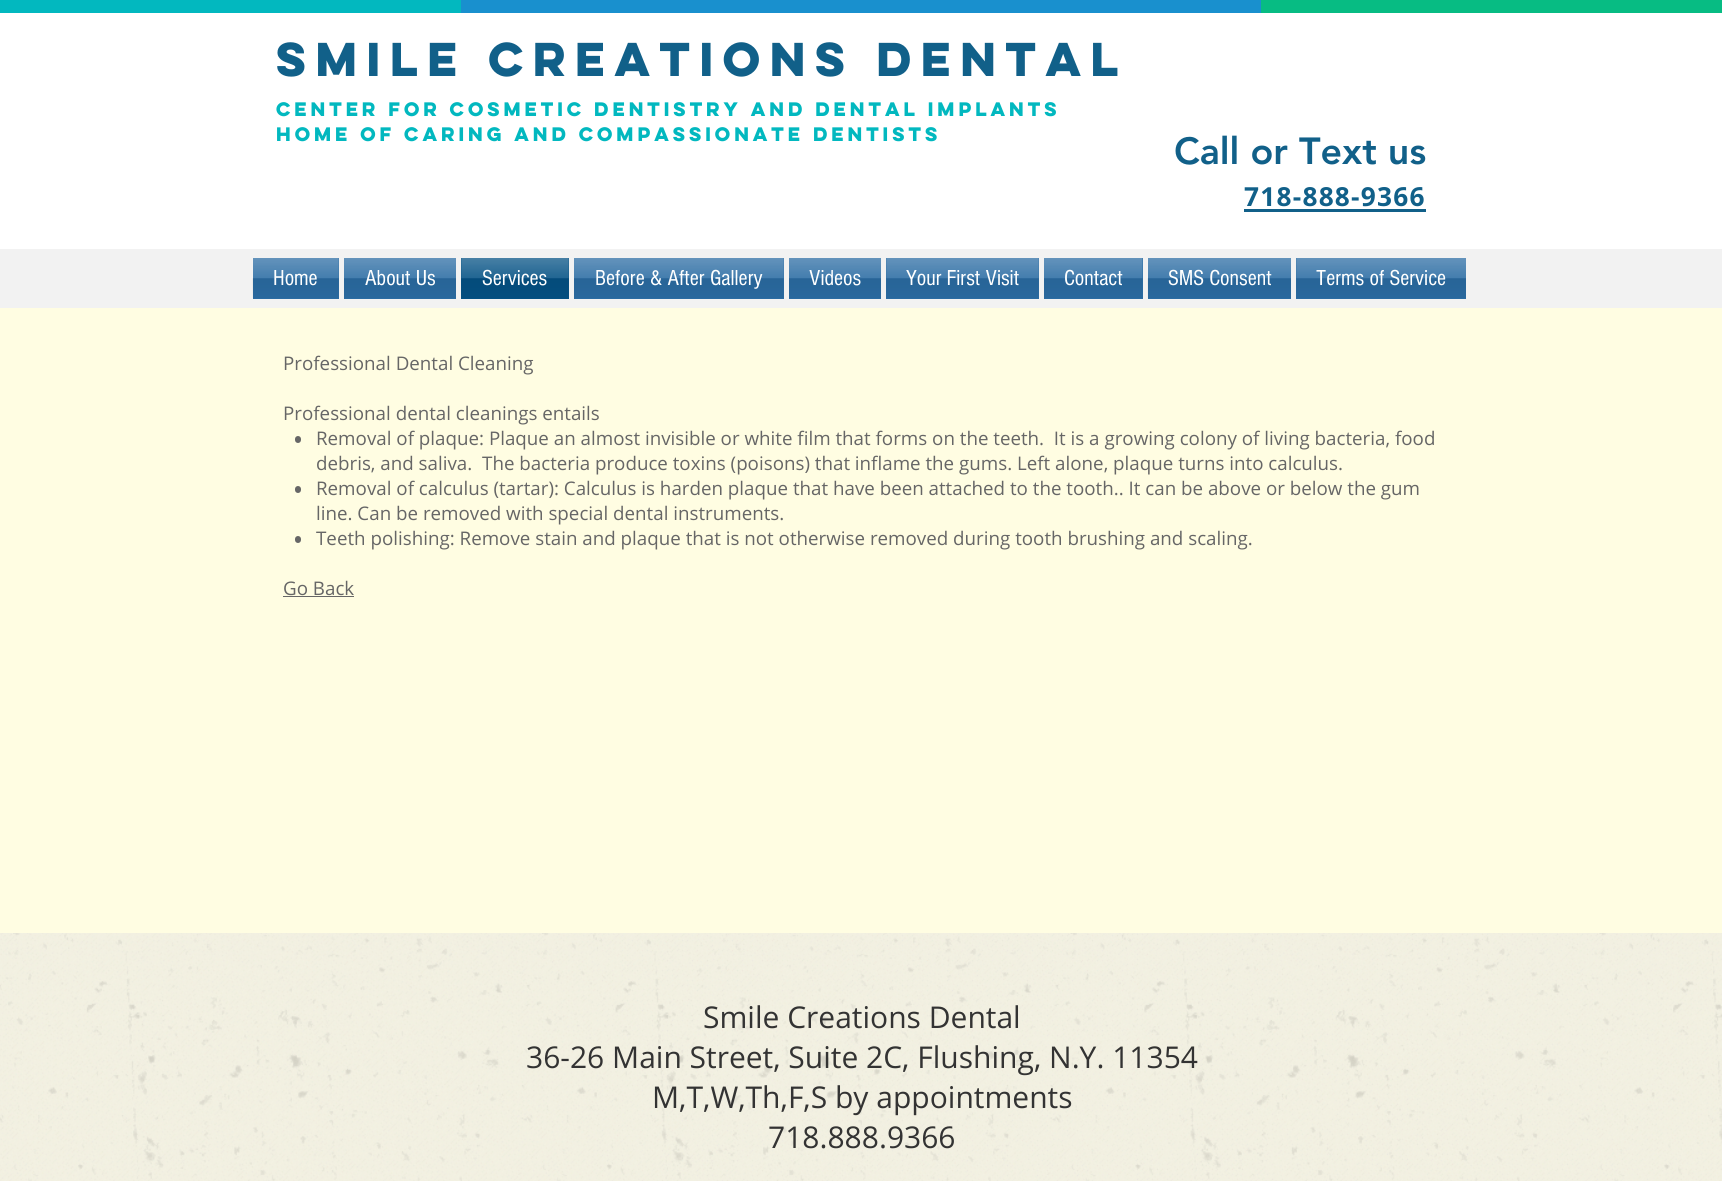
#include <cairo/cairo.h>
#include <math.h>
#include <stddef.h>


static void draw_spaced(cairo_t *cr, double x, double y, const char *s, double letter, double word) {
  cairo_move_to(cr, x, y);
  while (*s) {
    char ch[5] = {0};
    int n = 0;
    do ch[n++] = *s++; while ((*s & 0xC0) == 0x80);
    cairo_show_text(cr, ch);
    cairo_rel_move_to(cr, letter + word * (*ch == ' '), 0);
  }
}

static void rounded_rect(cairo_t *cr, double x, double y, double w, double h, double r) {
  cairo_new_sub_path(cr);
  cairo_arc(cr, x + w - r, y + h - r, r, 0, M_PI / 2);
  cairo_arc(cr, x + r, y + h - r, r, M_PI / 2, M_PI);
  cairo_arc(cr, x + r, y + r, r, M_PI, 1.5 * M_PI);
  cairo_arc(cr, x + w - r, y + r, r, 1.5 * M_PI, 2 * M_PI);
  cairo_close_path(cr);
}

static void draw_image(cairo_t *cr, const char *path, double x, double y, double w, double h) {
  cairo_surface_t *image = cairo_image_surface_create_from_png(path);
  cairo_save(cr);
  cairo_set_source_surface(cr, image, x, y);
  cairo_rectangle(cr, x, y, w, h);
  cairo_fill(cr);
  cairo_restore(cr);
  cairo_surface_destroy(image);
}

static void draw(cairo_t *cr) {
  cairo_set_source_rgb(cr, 1, 253 / 255.0, 226 / 255.0);
  cairo_paint(cr);
  cairo_set_source_rgb(cr, 1, 1, 1);
  cairo_rectangle(cr, 0, 13, 1722, 236);
  cairo_fill(cr);
  cairo_set_source_rgb(cr, 2 / 255.0, 184 / 255.0, 191 / 255.0);
  cairo_rectangle(cr, 0, 0, 461, 13);
  cairo_fill(cr);
  cairo_set_source_rgb(cr, 25 / 255.0, 144 / 255.0, 206 / 255.0);
  cairo_rectangle(cr, 461, 0, 800, 13);
  cairo_fill(cr);
  cairo_set_source_rgb(cr, 7 / 255.0, 188 / 255.0, 131 / 255.0);
  cairo_rectangle(cr, 1261, 0, 461, 13);
  cairo_fill(cr);
  cairo_set_source_rgb(cr, 17 / 255.0, 96 / 255.0, 137 / 255.0);
  cairo_rectangle(cr, 1244, 209, 182, 3);
  cairo_fill(cr);
  cairo_set_source_rgb(cr, 242 / 255.0, 242 / 255.0, 242 / 255.0);
  cairo_rectangle(cr, 0, 249, 1722, 59);
  cairo_fill(cr);
  cairo_set_source_rgb(cr, 43 / 255.0, 108 / 255.0, 163 / 255.0);
  cairo_rectangle(cr, 253, 258, 86, 41);
  cairo_fill(cr);
  draw_image(cr, "images/1.png", 252, 258, 87, 40);
  cairo_rectangle(cr, 344, 258, 112, 41);
  cairo_fill(cr);
  draw_image(cr, "images/2.png", 344, 258, 112, 40);
  cairo_set_source_rgb(cr, 4 / 255.0, 81 / 255.0, 132 / 255.0);
  cairo_rectangle(cr, 461, 258, 108, 41);
  cairo_fill(cr);
  draw_image(cr, "images/3.png", 461, 258, 108, 40);
  cairo_set_source_rgb(cr, 43 / 255.0, 108 / 255.0, 163 / 255.0);
  cairo_rectangle(cr, 574, 258, 210, 41);
  cairo_fill(cr);
  draw_image(cr, "images/4.png", 574, 258, 210, 40);
  cairo_rectangle(cr, 789, 258, 92, 41);
  cairo_fill(cr);
  draw_image(cr, "images/5.png", 789, 258, 92, 40);
  cairo_rectangle(cr, 886, 258, 153, 41);
  cairo_fill(cr);
  draw_image(cr, "images/6.png", 886, 258, 153, 40);
  cairo_rectangle(cr, 1044, 258, 99, 41);
  cairo_fill(cr);
  draw_image(cr, "images/7.png", 1044, 258, 99, 40);
  cairo_rectangle(cr, 1148, 258, 143, 41);
  cairo_fill(cr);
  draw_image(cr, "images/8.png", 1147, 258, 144, 40);
  cairo_rectangle(cr, 1296, 258, 170, 41);
  cairo_fill(cr);
  draw_image(cr, "images/9.png", 1296, 258, 170, 40);
  cairo_set_source_rgb(cr, 102 / 255.0, 102 / 255.0, 102 / 255.0);
  rounded_rect(cr, 295, 436, 6, 7, 3);
  cairo_fill(cr);
  rounded_rect(cr, 295, 486, 6, 7, 3);
  cairo_fill(cr);
  rounded_rect(cr, 295, 536, 6, 7, 3);
  cairo_fill(cr);
  cairo_rectangle(cr, 283, 596, 71, 1);
  cairo_fill(cr);
  cairo_set_source_rgb(cr, 242 / 255.0, 240 / 255.0, 225 / 255.0);
  cairo_rectangle(cr, 0, 933, 1722, 248);
  cairo_fill(cr);
  draw_image(cr, "images/10.png", 0, 933, 1722, 248);
  cairo_select_font_face(cr, "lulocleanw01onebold", CAIRO_FONT_SLANT_NORMAL, CAIRO_FONT_WEIGHT_BOLD);
  cairo_set_font_size(cr, 42.5);
  cairo_set_source_rgb(cr, 17 / 255.0, 96 / 255.0, 137 / 255.0);
  cairo_move_to(cr, 276, 76);
  cairo_show_text(cr, "Smile Creations Dental");
  cairo_set_font_size(cr, 17.5);
  cairo_set_source_rgb(cr, 2 / 255.0, 184 / 255.0, 191 / 255.0);
  cairo_move_to(cr, 276, 116);
  cairo_show_text(cr, "Center for Cosmetic Dentistry and Dental Implants");
  cairo_move_to(cr, 276, 141);
  cairo_show_text(cr, "Home of Caring and Compassionate Dentists");
  cairo_select_font_face(cr, "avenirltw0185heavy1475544 Black", CAIRO_FONT_SLANT_NORMAL, CAIRO_FONT_WEIGHT_NORMAL);
  cairo_set_font_size(cr, 37.5);
  cairo_set_source_rgb(cr, 17 / 255.0, 96 / 255.0, 137 / 255.0);
  cairo_move_to(cr, 1174, 164);
  cairo_show_text(cr, "Call or Text us");
  cairo_select_font_face(cr, "Open Sans", CAIRO_FONT_SLANT_NORMAL, CAIRO_FONT_WEIGHT_BOLD);
  cairo_set_font_size(cr, 26.25);
  draw_spaced(cr, 1244, 206, "718-888-9366", 1.25, 0);
  cairo_select_font_face(cr, "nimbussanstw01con", CAIRO_FONT_SLANT_NORMAL, CAIRO_FONT_WEIGHT_NORMAL);
  cairo_set_font_size(cr, 22.5);
  cairo_set_source_rgb(cr, 1, 1, 1);
  cairo_move_to(cr, 273, 285);
  cairo_show_text(cr, "Home");
  cairo_move_to(cr, 365, 285);
  cairo_show_text(cr, "About Us");
  cairo_move_to(cr, 482, 285);
  cairo_show_text(cr, "Services");
  cairo_move_to(cr, 595, 285);
  cairo_show_text(cr, "Before & After Gallery");
  cairo_move_to(cr, 809, 285);
  cairo_show_text(cr, "Videos");
  cairo_move_to(cr, 906, 285);
  cairo_show_text(cr, "Your First Visit");
  cairo_move_to(cr, 1064, 285);
  cairo_show_text(cr, "Contact");
  cairo_move_to(cr, 1168, 285);
  cairo_show_text(cr, "SMS Consent");
  cairo_move_to(cr, 1316, 285);
  cairo_show_text(cr, "Terms of Service");
  cairo_select_font_face(cr, "Open Sans", CAIRO_FONT_SLANT_NORMAL, CAIRO_FONT_WEIGHT_NORMAL);
  cairo_set_font_size(cr, 18.75);
  cairo_set_source_rgb(cr, 102 / 255.0, 102 / 255.0, 102 / 255.0);
  cairo_move_to(cr, 283, 370);
  cairo_show_text(cr, "Professional Dental Cleaning");
  cairo_move_to(cr, 283, 420);
  cairo_show_text(cr, "Professional dental cleanings entails");
  cairo_move_to(cr, 316, 445);
  cairo_show_text(cr, "Removal of plaque: Plaque an almost invisible or white film that forms on the teeth.  It is a growing colony of living bacteria, food");
  cairo_move_to(cr, 316, 470);
  cairo_show_text(cr, "debris, and saliva.  The bacteria produce toxins (poisons) that inflame the gums. Left alone, plaque turns into calculus.");
  cairo_move_to(cr, 316, 495);
  cairo_show_text(cr, "Removal of calculus (tartar): Calculus is harden plaque that have been attached to the tooth.. It can be above or below the gum");
  cairo_move_to(cr, 316, 520);
  cairo_show_text(cr, "line. Can be removed with special dental instruments.");
  cairo_move_to(cr, 316, 545);
  cairo_show_text(cr, "Teeth polishing: Remove stain and plaque that is not otherwise removed during tooth brushing and scaling.");
  cairo_move_to(cr, 283, 595);
  cairo_show_text(cr, "Go Back");
  cairo_set_font_size(cr, 30);
  cairo_set_source_rgb(cr, 51 / 255.0, 51 / 255.0, 51 / 255.0);
  cairo_move_to(cr, 703, 1028);
  cairo_show_text(cr, "Smile Creations Dental");
  cairo_move_to(cr, 526, 1068);
  cairo_show_text(cr, "36-26 Main Street, Suite 2C, Flushing, N.Y. 11354");
  cairo_move_to(cr, 652, 1108);
  cairo_show_text(cr, "M,T,W,Th,F,S by appointments");
  cairo_move_to(cr, 768, 1148);
  cairo_show_text(cr, "718.888.9366");
}

int main(void) {
  cairo_surface_t *surface = cairo_image_surface_create(CAIRO_FORMAT_RGB24, 1722, 1181);
  cairo_t *cr = cairo_create(surface);
  cairo_font_options_t *options = cairo_font_options_create();
  cairo_font_options_set_hint_metrics(options, CAIRO_HINT_METRICS_OFF);
  cairo_font_options_set_hint_style(options, CAIRO_HINT_STYLE_NONE);
  cairo_set_font_options(cr, options);
  cairo_set_miter_limit(cr, 4);
  draw(cr);
  cairo_surface_write_to_png(surface, "out.png");
  cairo_font_options_destroy(options);
  cairo_destroy(cr);
  cairo_surface_destroy(surface);
  return 0;
}
